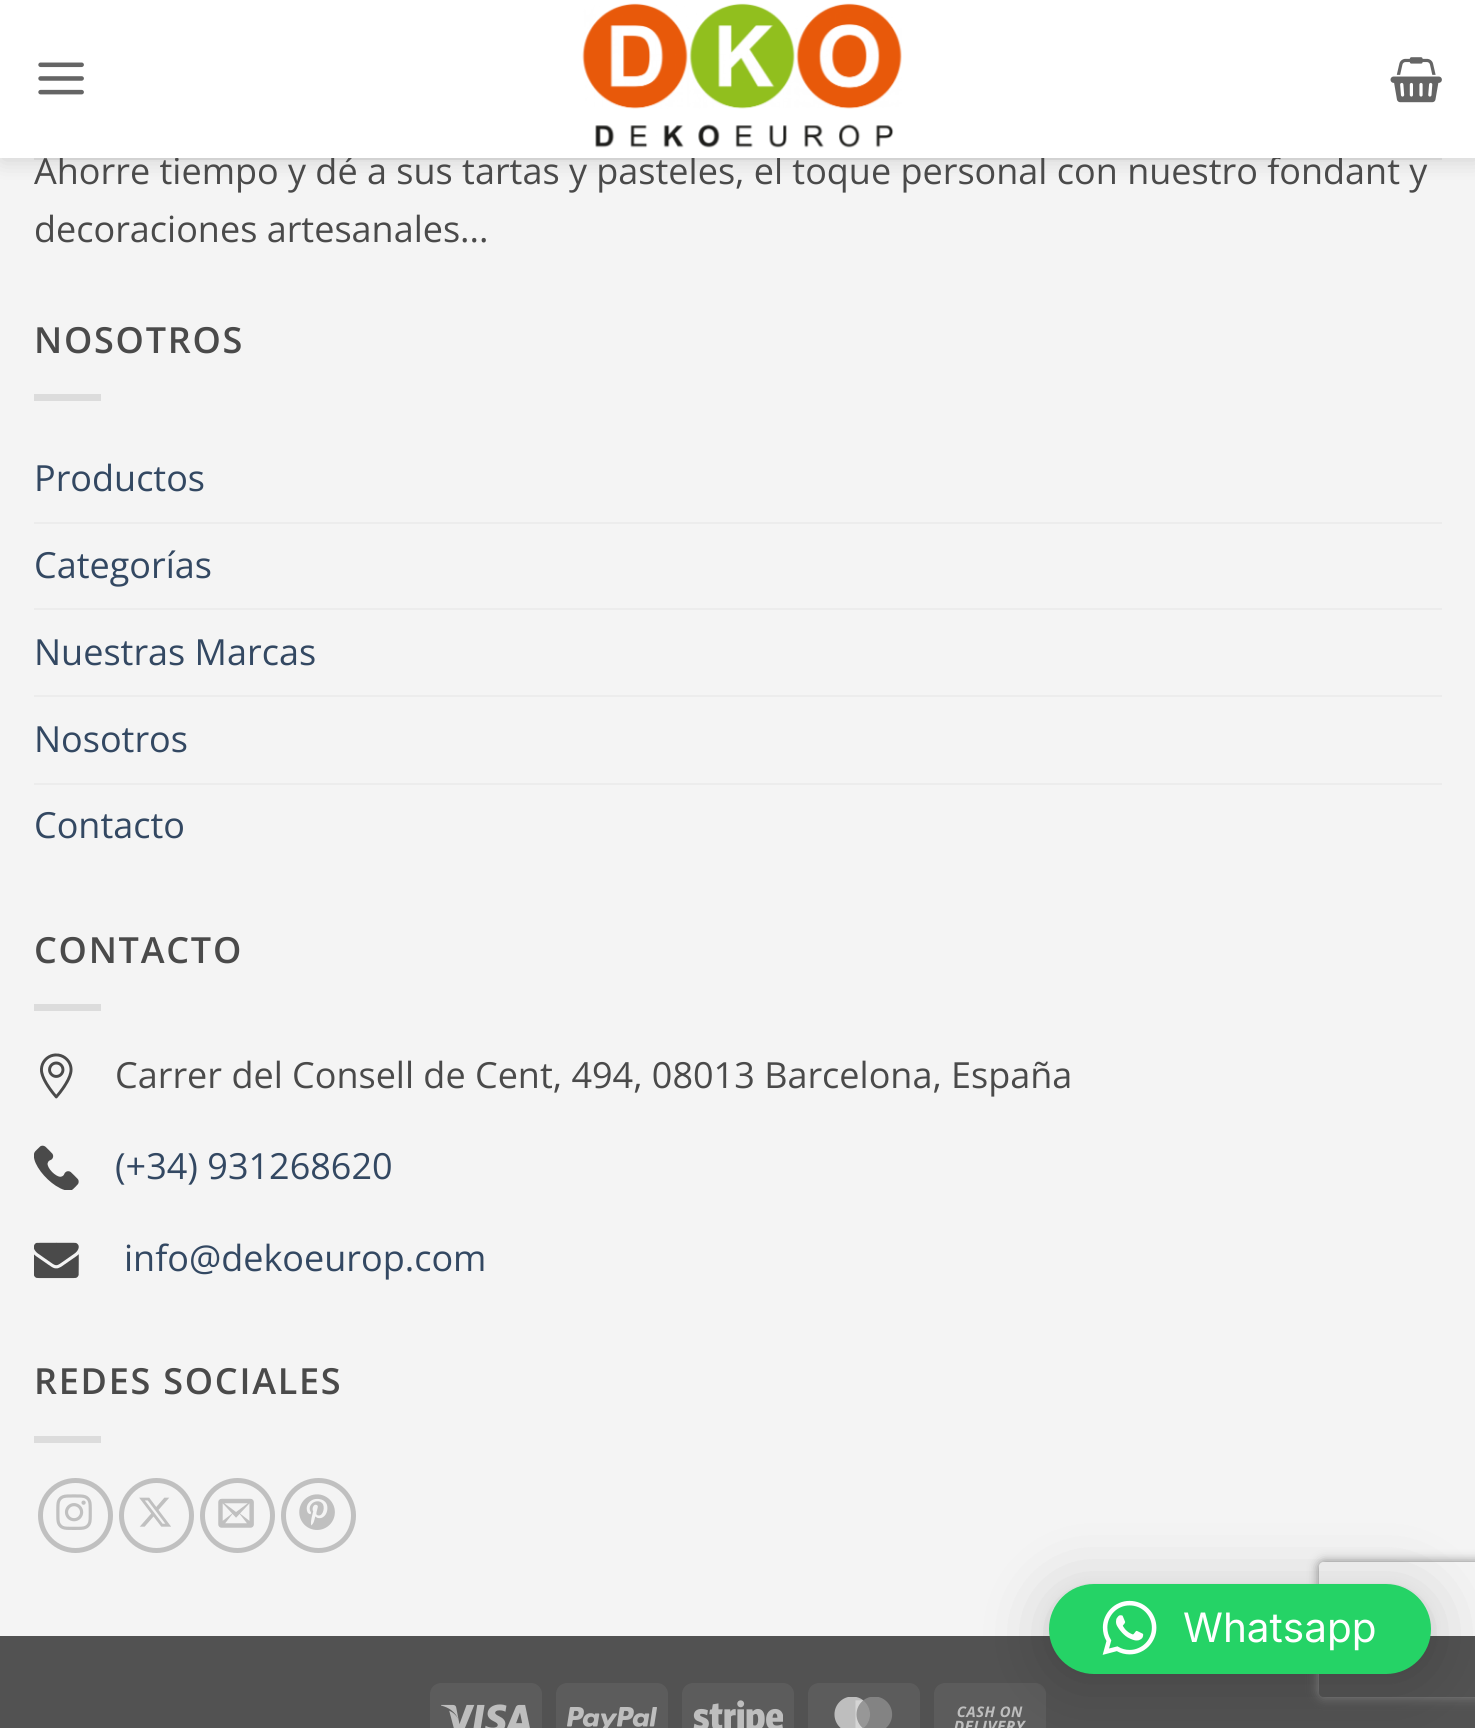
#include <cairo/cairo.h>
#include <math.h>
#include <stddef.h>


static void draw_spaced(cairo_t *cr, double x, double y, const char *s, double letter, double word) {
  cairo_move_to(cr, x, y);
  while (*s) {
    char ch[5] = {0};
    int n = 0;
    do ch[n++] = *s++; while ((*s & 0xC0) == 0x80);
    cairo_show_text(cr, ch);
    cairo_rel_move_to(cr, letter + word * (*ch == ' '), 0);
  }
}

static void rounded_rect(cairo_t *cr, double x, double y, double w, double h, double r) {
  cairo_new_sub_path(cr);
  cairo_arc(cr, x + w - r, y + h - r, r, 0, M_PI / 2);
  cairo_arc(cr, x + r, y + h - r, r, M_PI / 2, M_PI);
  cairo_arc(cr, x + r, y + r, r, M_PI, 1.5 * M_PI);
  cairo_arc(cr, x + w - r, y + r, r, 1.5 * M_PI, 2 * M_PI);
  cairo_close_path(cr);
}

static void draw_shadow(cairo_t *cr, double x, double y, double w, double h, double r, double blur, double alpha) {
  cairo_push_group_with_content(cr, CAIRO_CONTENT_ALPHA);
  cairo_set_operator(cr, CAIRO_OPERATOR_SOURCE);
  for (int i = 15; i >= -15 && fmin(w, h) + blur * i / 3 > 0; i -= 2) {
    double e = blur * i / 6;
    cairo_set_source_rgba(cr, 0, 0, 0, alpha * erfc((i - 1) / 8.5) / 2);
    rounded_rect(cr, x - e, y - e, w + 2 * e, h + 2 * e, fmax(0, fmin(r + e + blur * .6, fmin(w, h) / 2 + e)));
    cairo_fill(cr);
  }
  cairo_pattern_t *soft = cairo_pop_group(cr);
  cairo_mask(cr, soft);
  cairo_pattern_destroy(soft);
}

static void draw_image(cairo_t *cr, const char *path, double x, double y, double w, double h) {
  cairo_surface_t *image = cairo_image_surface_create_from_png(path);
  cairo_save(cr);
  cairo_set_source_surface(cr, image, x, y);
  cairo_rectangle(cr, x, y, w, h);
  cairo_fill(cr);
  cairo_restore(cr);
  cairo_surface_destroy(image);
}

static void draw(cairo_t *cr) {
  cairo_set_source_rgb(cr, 244 / 255.0, 244 / 255.0, 244 / 255.0);
  cairo_paint(cr);
  cairo_set_source_rgb(cr, 0, 0, 0);
  draw_shadow(cr, 2, 2, 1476, 158, 0, 11, 0.15);
  cairo_set_source_rgba(cr, 74 / 255.0, 74 / 255.0, 74 / 255.0, 0.1);
  cairo_rectangle(cr, 34, 158, 1408, 2);
  cairo_fill(cr);
  cairo_set_source_rgb(cr, 220 / 255.0, 220 / 255.0, 220 / 255.0);
  cairo_rectangle(cr, 34, 394, 67, 7);
  cairo_fill(cr);
  cairo_set_source_rgb(cr, 236 / 255.0, 236 / 255.0, 236 / 255.0);
  cairo_rectangle(cr, 34, 522, 1408, 2);
  cairo_fill(cr);
  cairo_rectangle(cr, 34, 608, 1408, 2);
  cairo_fill(cr);
  cairo_rectangle(cr, 34, 695, 1408, 2);
  cairo_fill(cr);
  cairo_rectangle(cr, 34, 783, 1408, 2);
  cairo_fill(cr);
  cairo_set_source_rgb(cr, 220 / 255.0, 220 / 255.0, 220 / 255.0);
  cairo_rectangle(cr, 34, 1004, 67, 7);
  cairo_fill(cr);
  draw_image(cr, "images/4.png", 40, 1053, 33, 46);
  draw_image(cr, "images/5.png", 34, 1145, 45, 45);
  draw_image(cr, "images/6.png", 34, 1242, 45, 37);
  cairo_rectangle(cr, 34, 1436, 67, 7);
  cairo_fill(cr);
  cairo_arc(cr, 75.5, 1515.5, 35, 0, 2 * M_PI);
  cairo_set_source_rgb(cr, 192 / 255.0, 192 / 255.0, 192 / 255.0);
  cairo_set_line_width(cr, 5);
  cairo_stroke(cr);
  draw_image(cr, "images/7.png", 56, 1494, 36, 36);
  cairo_arc(cr, 156.5, 1515.5, 35, 0, 2 * M_PI);
  cairo_stroke(cr);
  draw_image(cr, "images/8.png", 139, 1497, 32, 30);
  cairo_arc(cr, 237.5, 1515.5, 35, 0, 2 * M_PI);
  cairo_stroke(cr);
  draw_image(cr, "images/9.png", 218, 1498, 36, 30);
  cairo_arc(cr, 318.5, 1515.5, 35, 0, 2 * M_PI);
  cairo_stroke(cr);
  draw_image(cr, "images/10.png", 299, 1494, 36, 36);
  cairo_set_source_rgb(cr, 82 / 255.0, 82 / 255.0, 82 / 255.0);
  cairo_rectangle(cr, 0, 1636, 1475, 92);
  cairo_fill(cr);
  cairo_set_source_rgb(cr, 92 / 255.0, 92 / 255.0, 92 / 255.0);
  rounded_rect(cr, 430, 1683, 112, 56, 11);
  cairo_fill(cr);
  draw_image(cr, "images/11.png", 441, 1704, 89, 24);
  rounded_rect(cr, 556, 1683, 112, 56, 11);
  cairo_fill(cr);
  draw_image(cr, "images/12.png", 567, 1707, 90, 21);
  rounded_rect(cr, 682, 1683, 112, 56, 11);
  cairo_fill(cr);
  draw_image(cr, "images/13.png", 693, 1700, 90, 28);
  rounded_rect(cr, 808, 1683, 112, 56, 11);
  cairo_fill(cr);
  draw_image(cr, "images/14.png", 834, 1697, 59, 31);
  rounded_rect(cr, 934, 1683, 112, 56, 11);
  cairo_fill(cr);
  draw_image(cr, "images/15.png", 954, 1706, 72, 22);
  cairo_set_source_rgb(cr, 0, 0, 0);
  draw_shadow(cr, 1049, 1589, 382, 90, 45, 36, 0.16);
  draw_shadow(cr, 1049, 1586, 382, 90, 45, 7, 0.06);
  cairo_save(cr);
  cairo_set_fill_rule(cr, CAIRO_FILL_RULE_EVEN_ODD);
  cairo_new_path(cr);
  cairo_move_to(cr, 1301, 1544);
  cairo_line_to(cr, 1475, 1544);
  cairo_line_to(cr, 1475, 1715);
  cairo_line_to(cr, 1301, 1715);
  cairo_close_path(cr);
  cairo_move_to(cr, 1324, 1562);
  cairo_line_to(cr, 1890, 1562);
  cairo_curve_to(cr, 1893, 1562, 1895, 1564, 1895, 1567);
  cairo_line_to(cr, 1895, 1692);
  cairo_curve_to(cr, 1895, 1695, 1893, 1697, 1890, 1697);
  cairo_line_to(cr, 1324, 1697);
  cairo_curve_to(cr, 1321, 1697, 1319, 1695, 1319, 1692);
  cairo_line_to(cr, 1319, 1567);
  cairo_curve_to(cr, 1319, 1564, 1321, 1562, 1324, 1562);
  cairo_close_path(cr);
  cairo_clip(cr);
  cairo_set_source_rgb(cr, 128 / 255.0, 128 / 255.0, 128 / 255.0);
  draw_shadow(cr, 1319, 1562, 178, 135, 5, 5.5, 1);
  cairo_restore(cr);
  cairo_set_source_rgb(cr, 37 / 255.0, 211 / 255.0, 102 / 255.0);
  rounded_rect(cr, 1049, 1584, 382, 90, 45);
  cairo_fill(cr);
  draw_image(cr, "images/16.png", 1102, 1600, 55, 55);
  cairo_select_font_face(cr, "Open Sans", CAIRO_FONT_SLANT_NORMAL, CAIRO_FONT_WEIGHT_NORMAL);
  cairo_set_font_size(cr, 36);
  cairo_set_source_rgb(cr, 74 / 255.0, 74 / 255.0, 74 / 255.0);
  cairo_move_to(cr, 34, 184);
  cairo_show_text(cr, "Ahorre tiempo y dé a sus tartas y pasteles, el toque personal con nuestro fondant y");
  cairo_set_source_rgb(cr, 1, 1, 1);
  cairo_rectangle(cr, 0, 0, 1475, 158);
  cairo_fill(cr);
  draw_image(cr, "images/3.png", 1390, 57, 52, 46);
  draw_image(cr, "images/1.png", 38, 62, 46, 33);
  draw_image(cr, "images/2.png", 582, 3, 320, 145);
  cairo_set_source_rgb(cr, 74 / 255.0, 74 / 255.0, 74 / 255.0);
  cairo_move_to(cr, 34, 242);
  cairo_show_text(cr, "decoraciones artesanales...");
  cairo_select_font_face(cr, "Open Sans SemiBold", CAIRO_FONT_SLANT_NORMAL, CAIRO_FONT_WEIGHT_NORMAL);
  draw_spaced(cr, 34, 353, "NOSOTROS", 1.75, 0);
  cairo_select_font_face(cr, "Open Sans", CAIRO_FONT_SLANT_NORMAL, CAIRO_FONT_WEIGHT_NORMAL);
  cairo_set_source_rgb(cr, 51 / 255.0, 72 / 255.0, 98 / 255.0);
  cairo_move_to(cr, 34, 491);
  cairo_show_text(cr, "Productos");
  cairo_move_to(cr, 34, 578);
  cairo_show_text(cr, "Categorías");
  cairo_move_to(cr, 34, 665);
  cairo_show_text(cr, "Nuestras Marcas");
  cairo_move_to(cr, 34, 752);
  cairo_show_text(cr, "Nosotros");
  cairo_move_to(cr, 34, 838);
  cairo_show_text(cr, "Contacto");
  cairo_select_font_face(cr, "Open Sans SemiBold", CAIRO_FONT_SLANT_NORMAL, CAIRO_FONT_WEIGHT_NORMAL);
  cairo_set_source_rgb(cr, 74 / 255.0, 74 / 255.0, 74 / 255.0);
  draw_spaced(cr, 34, 963, "CONTACTO", 1.75, 0);
  cairo_select_font_face(cr, "Open Sans", CAIRO_FONT_SLANT_NORMAL, CAIRO_FONT_WEIGHT_NORMAL);
  cairo_move_to(cr, 115, 1088);
  cairo_show_text(cr, "Carrer del Consell de Cent, 494, 08013 Barcelona, España");
  cairo_set_source_rgb(cr, 51 / 255.0, 72 / 255.0, 98 / 255.0);
  cairo_move_to(cr, 115, 1179);
  cairo_show_text(cr, "(+34) 931268620");
  cairo_move_to(cr, 124, 1271);
  cairo_show_text(cr, "info@dekoeurop.com");
  cairo_select_font_face(cr, "Open Sans SemiBold", CAIRO_FONT_SLANT_NORMAL, CAIRO_FONT_WEIGHT_NORMAL);
  cairo_set_source_rgb(cr, 74 / 255.0, 74 / 255.0, 74 / 255.0);
  draw_spaced(cr, 34, 1394, "REDES SOCIALES", 1.75, 0);
  cairo_select_font_face(cr, "Inter", CAIRO_FONT_SLANT_NORMAL, CAIRO_FONT_WEIGHT_NORMAL);
  cairo_set_font_size(cr, 40.5);
  cairo_set_source_rgb(cr, 1, 1, 1);
  cairo_move_to(cr, 1183, 1642);
  cairo_show_text(cr, "Whatsapp");
}

int main(void) {
  cairo_surface_t *surface = cairo_image_surface_create(CAIRO_FORMAT_RGB24, 1475, 1728);
  cairo_t *cr = cairo_create(surface);
  cairo_font_options_t *options = cairo_font_options_create();
  cairo_font_options_set_hint_metrics(options, CAIRO_HINT_METRICS_OFF);
  cairo_font_options_set_hint_style(options, CAIRO_HINT_STYLE_NONE);
  cairo_set_font_options(cr, options);
  cairo_set_miter_limit(cr, 4);
  draw(cr);
  cairo_surface_write_to_png(surface, "out.png");
  cairo_font_options_destroy(options);
  cairo_destroy(cr);
  cairo_surface_destroy(surface);
  return 0;
}
